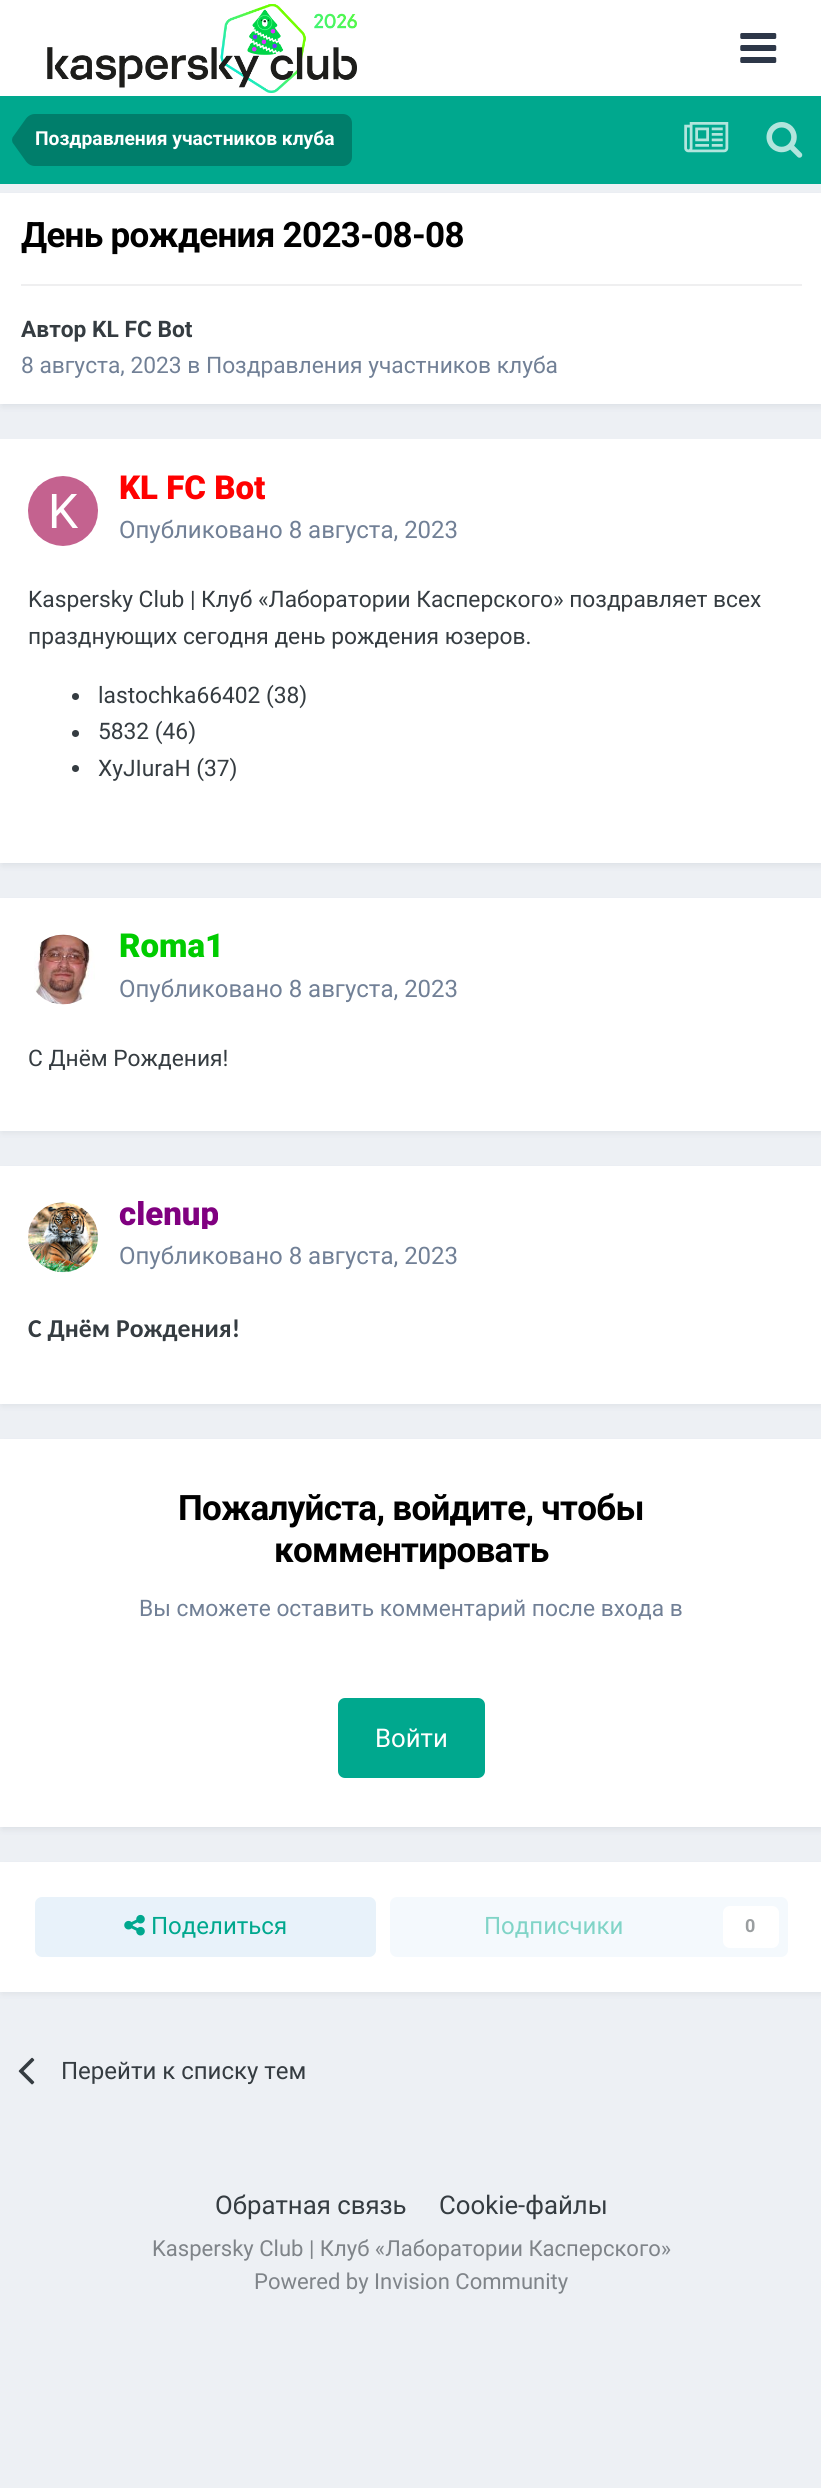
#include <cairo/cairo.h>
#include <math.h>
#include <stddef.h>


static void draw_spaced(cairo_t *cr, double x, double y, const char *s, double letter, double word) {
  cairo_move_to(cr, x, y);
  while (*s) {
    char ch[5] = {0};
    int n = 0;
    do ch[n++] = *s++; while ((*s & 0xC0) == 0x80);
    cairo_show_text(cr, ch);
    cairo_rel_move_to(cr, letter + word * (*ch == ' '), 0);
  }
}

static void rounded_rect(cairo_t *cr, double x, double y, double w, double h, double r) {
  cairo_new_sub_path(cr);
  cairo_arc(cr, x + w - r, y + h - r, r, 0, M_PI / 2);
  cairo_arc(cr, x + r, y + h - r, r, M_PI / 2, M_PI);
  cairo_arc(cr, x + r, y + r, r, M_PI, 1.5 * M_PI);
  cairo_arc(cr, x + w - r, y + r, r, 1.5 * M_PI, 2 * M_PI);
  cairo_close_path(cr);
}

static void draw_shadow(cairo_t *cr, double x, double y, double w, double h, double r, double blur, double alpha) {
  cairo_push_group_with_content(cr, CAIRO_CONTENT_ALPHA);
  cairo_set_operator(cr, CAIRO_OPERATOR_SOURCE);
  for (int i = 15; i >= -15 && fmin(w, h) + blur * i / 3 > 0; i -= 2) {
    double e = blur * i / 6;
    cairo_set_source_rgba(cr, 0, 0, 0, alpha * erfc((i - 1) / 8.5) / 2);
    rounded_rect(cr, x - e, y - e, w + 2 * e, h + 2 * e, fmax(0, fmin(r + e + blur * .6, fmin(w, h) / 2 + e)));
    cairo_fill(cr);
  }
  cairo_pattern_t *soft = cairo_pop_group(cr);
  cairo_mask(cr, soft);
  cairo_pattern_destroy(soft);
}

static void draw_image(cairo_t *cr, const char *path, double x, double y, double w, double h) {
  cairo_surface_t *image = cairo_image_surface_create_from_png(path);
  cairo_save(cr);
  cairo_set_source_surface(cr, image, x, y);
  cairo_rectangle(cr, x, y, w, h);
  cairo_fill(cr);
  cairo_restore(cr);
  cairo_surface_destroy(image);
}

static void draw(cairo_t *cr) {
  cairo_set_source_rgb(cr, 237 / 255.0, 240 / 255.0, 244 / 255.0);
  cairo_paint(cr);
  cairo_set_source_rgb(cr, 1, 1, 1);
  cairo_rectangle(cr, 0, 0, 821, 96);
  cairo_fill(cr);
  draw_image(cr, "images/1.png", 47, 4, 310, 89);
  draw_image(cr, "images/2.png", 740, 33, 37, 30);
  cairo_set_source_rgb(cr, 0, 168 / 255.0, 142 / 255.0);
  cairo_rectangle(cr, 0, 96, 821, 88);
  cairo_fill(cr);
  cairo_set_source_rgb(cr, 0, 126 / 255.0, 107 / 255.0);
  cairo_new_path(cr);
  cairo_move_to(cr, 35, 114);
  cairo_line_to(cr, 343, 114);
  cairo_curve_to(cr, 348, 114, 352, 118, 352, 123);
  cairo_line_to(cr, 352, 157);
  cairo_curve_to(cr, 352, 162, 348, 166, 343, 166);
  cairo_line_to(cr, 35, 166);
  cairo_close_path(cr);
  cairo_fill(cr);
  cairo_new_path(cr);
  cairo_move_to(cr, 35, 140);
  cairo_line_to(cr, 35, 166);
  cairo_curve_to(cr, 31, 166, 27.5, 164, 25, 160);
  cairo_line_to(cr, 12.5, 142.5);
  cairo_line_to(cr, 12, 140);
  cairo_close_path(cr);
  cairo_move_to(cr, 35, 140);
  cairo_line_to(cr, 12, 140);
  cairo_line_to(cr, 12.5, 137.5);
  cairo_line_to(cr, 25, 120);
  cairo_curve_to(cr, 27.5, 116, 31, 114, 35, 114);
  cairo_close_path(cr);
  cairo_fill(cr);
  draw_image(cr, "images/3.png", 684, 122, 45, 31);
  draw_image(cr, "images/4.png", 766, 122, 37, 36);
  cairo_set_source_rgb(cr, 45 / 255.0, 55 / 255.0, 72 / 255.0);
  draw_shadow(cr, 2, 198, 819, 208, 0, 3.5, 0.1);
  cairo_set_source_rgb(cr, 1, 1, 1);
  cairo_rectangle(cr, 0, 193, 821, 211);
  cairo_fill(cr);
  cairo_set_source_rgb(cr, 239 / 255.0, 239 / 255.0, 240 / 255.0);
  cairo_rectangle(cr, 21, 284, 781, 2);
  cairo_fill(cr);
  cairo_set_source_rgb(cr, 45 / 255.0, 55 / 255.0, 72 / 255.0);
  draw_shadow(cr, 2, 445, 819, 420, 0, 3.5, 0.1);
  cairo_set_source_rgb(cr, 1, 1, 1);
  cairo_rectangle(cr, 0, 439, 821, 424);
  cairo_fill(cr);
  draw_image(cr, "images/5.png", 28, 476, 70, 70);
  cairo_set_source_rgb(cr, 53 / 255.0, 60 / 255.0, 65 / 255.0);
  cairo_arc(cr, 75.5, 696.5, 3.5, 0, 2 * M_PI);
  cairo_fill(cr);
  cairo_arc(cr, 75.5, 733.5, 3.5, 0, 2 * M_PI);
  cairo_fill(cr);
  cairo_arc(cr, 75.5, 768.5, 3.5, 0, 2 * M_PI);
  cairo_fill(cr);
  cairo_set_source_rgb(cr, 45 / 255.0, 55 / 255.0, 72 / 255.0);
  draw_shadow(cr, 2, 903, 819, 229, 0, 3.5, 0.1);
  cairo_set_source_rgb(cr, 1, 1, 1);
  cairo_rectangle(cr, 0, 898, 821, 233);
  cairo_fill(cr);
  draw_image(cr, "images/6.png", 34, 934, 61, 71);
  cairo_set_source_rgb(cr, 45 / 255.0, 55 / 255.0, 72 / 255.0);
  draw_shadow(cr, 2, 1171, 819, 234, 0, 3.5, 0.1);
  cairo_set_source_rgb(cr, 1, 1, 1);
  cairo_rectangle(cr, 0, 1166, 821, 238);
  cairo_fill(cr);
  draw_image(cr, "images/7.png", 28, 1202, 70, 71);
  cairo_set_source_rgb(cr, 45 / 255.0, 55 / 255.0, 72 / 255.0);
  draw_shadow(cr, 2, 1444, 819, 385, 0, 3.5, 0.1);
  cairo_set_source_rgb(cr, 1, 1, 1);
  cairo_rectangle(cr, 0, 1439, 821, 388);
  cairo_fill(cr);
  cairo_set_source_rgb(cr, 0, 168 / 255.0, 142 / 255.0);
  rounded_rect(cr, 338, 1698, 147, 80, 7);
  cairo_fill(cr);
  cairo_set_source_rgb(cr, 45 / 255.0, 55 / 255.0, 72 / 255.0);
  draw_shadow(cr, 2, 1867, 819, 126, 0, 3.5, 0.1);
  cairo_set_source_rgb(cr, 1, 1, 1);
  cairo_rectangle(cr, 0, 1862, 821, 130);
  cairo_fill(cr);
  cairo_set_source_rgb(cr, 232 / 255.0, 242 / 255.0, 250 / 255.0);
  rounded_rect(cr, 35, 1897, 341, 60, 7);
  cairo_fill(cr);
  draw_image(cr, "images/8.png", 124, 1914, 21, 22);
  cairo_set_source_rgb(cr, 244 / 255.0, 249 / 255.0, 253 / 255.0);
  rounded_rect(cr, 390, 1897, 398, 60, 7);
  cairo_fill(cr);
  cairo_set_source_rgb(cr, 1, 1, 1);
  rounded_rect(cr, 723, 1906, 56, 42, 7);
  cairo_fill(cr);
  draw_image(cr, "images/9.png", 18, 2057, 17, 28);
  cairo_select_font_face(cr, "Roboto", CAIRO_FONT_SLANT_NORMAL, CAIRO_FONT_WEIGHT_BOLD);
  cairo_set_font_size(cr, 19.25);
  cairo_move_to(cr, 35, 145);
  cairo_show_text(cr, "Поздравления участников клуба");
  cairo_set_font_size(cr, 35);
  cairo_set_source_rgb(cr, 0, 0, 0);
  draw_spaced(cr, 21, 247, "День рождения 2023-08-08", -0.7, 0);
  cairo_set_font_size(cr, 22.75);
  cairo_set_source_rgb(cr, 53 / 255.0, 60 / 255.0, 65 / 255.0);
  cairo_move_to(cr, 21, 337);
  cairo_show_text(cr, "Автор KL FC Bot");
  cairo_select_font_face(cr, "Roboto", CAIRO_FONT_SLANT_NORMAL, CAIRO_FONT_WEIGHT_NORMAL);
  cairo_set_source_rgb(cr, 113 / 255.0, 128 / 255.0, 150 / 255.0);
  cairo_move_to(cr, 21, 373);
  cairo_show_text(cr, "8 августа, 2023 в Поздравления участников клуба");
  cairo_select_font_face(cr, "Roboto Black", CAIRO_FONT_SLANT_NORMAL, CAIRO_FONT_WEIGHT_NORMAL);
  cairo_set_font_size(cr, 33);
  cairo_set_source_rgb(cr, 1, 0, 0);
  cairo_move_to(cr, 119, 499);
  cairo_show_text(cr, "KL FC Bot");
  cairo_select_font_face(cr, "Roboto", CAIRO_FONT_SLANT_NORMAL, CAIRO_FONT_WEIGHT_NORMAL);
  cairo_set_font_size(cr, 24);
  cairo_set_source_rgb(cr, 113 / 255.0, 128 / 255.0, 150 / 255.0);
  cairo_move_to(cr, 119, 538);
  cairo_show_text(cr, "Опубликовано 8 августа, 2023");
  cairo_set_font_size(cr, 22.75);
  cairo_set_source_rgb(cr, 53 / 255.0, 60 / 255.0, 65 / 255.0);
  cairo_move_to(cr, 28, 607);
  cairo_show_text(cr, "Kaspersky Club | Клуб «Лаборатории Касперского» поздравляет всех");
  cairo_move_to(cr, 28, 644);
  cairo_show_text(cr, "празднующих сегодня день рождения юзеров.");
  cairo_move_to(cr, 98, 703);
  cairo_show_text(cr, "lastochka66402 (38)");
  cairo_move_to(cr, 98, 739);
  cairo_show_text(cr, "5832 (46)");
  cairo_move_to(cr, 98, 776);
  cairo_show_text(cr, "XyJIuraH (37)");
  cairo_select_font_face(cr, "Roboto Black", CAIRO_FONT_SLANT_NORMAL, CAIRO_FONT_WEIGHT_NORMAL);
  cairo_set_font_size(cr, 33);
  cairo_set_source_rgb(cr, 0, 204 / 255.0, 0);
  cairo_move_to(cr, 119, 957);
  cairo_show_text(cr, "Roma1");
  cairo_select_font_face(cr, "Roboto", CAIRO_FONT_SLANT_NORMAL, CAIRO_FONT_WEIGHT_NORMAL);
  cairo_set_font_size(cr, 24);
  cairo_set_source_rgb(cr, 113 / 255.0, 128 / 255.0, 150 / 255.0);
  cairo_move_to(cr, 119, 997);
  cairo_show_text(cr, "Опубликовано 8 августа, 2023");
  cairo_set_font_size(cr, 22.75);
  cairo_set_source_rgb(cr, 53 / 255.0, 60 / 255.0, 65 / 255.0);
  cairo_move_to(cr, 28, 1066);
  cairo_show_text(cr, "С Днём Рождения!");
  cairo_save(cr);
  cairo_rectangle(cr, 119, 1201, 100, 28);
  cairo_clip(cr);
  cairo_select_font_face(cr, "Roboto Black", CAIRO_FONT_SLANT_NORMAL, CAIRO_FONT_WEIGHT_NORMAL);
  cairo_set_font_size(cr, 33);
  cairo_set_source_rgb(cr, 128 / 255.0, 0, 128 / 255.0);
  cairo_move_to(cr, 119, 1225);
  cairo_show_text(cr, "clenup");
  cairo_restore(cr);
  cairo_set_font_size(cr, 24);
  cairo_set_source_rgb(cr, 113 / 255.0, 128 / 255.0, 150 / 255.0);
  cairo_move_to(cr, 119, 1264);
  cairo_show_text(cr, "Опубликовано 8 августа, 2023");
  cairo_select_font_face(cr, "Carlito", CAIRO_FONT_SLANT_NORMAL, CAIRO_FONT_WEIGHT_BOLD);
  cairo_set_font_size(cr, 25.75);
  cairo_set_source_rgb(cr, 53 / 255.0, 60 / 255.0, 65 / 255.0);
  cairo_move_to(cr, 28, 1337);
  cairo_show_text(cr, "С Днём Рождения!");
  cairo_select_font_face(cr, "Roboto", CAIRO_FONT_SLANT_NORMAL, CAIRO_FONT_WEIGHT_BOLD);
  cairo_set_font_size(cr, 35);
  cairo_set_source_rgb(cr, 0, 0, 0);
  draw_spaced(cr, 178, 1520, "Пожалуйста, войдите, чтобы", -0.7, 0);
  draw_spaced(cr, 274, 1562, "комментировать", -0.7, 0);
  cairo_select_font_face(cr, "Roboto", CAIRO_FONT_SLANT_NORMAL, CAIRO_FONT_WEIGHT_NORMAL);
  cairo_set_font_size(cr, 22.75);
  cairo_set_source_rgb(cr, 113 / 255.0, 128 / 255.0, 150 / 255.0);
  cairo_move_to(cr, 139, 1616);
  cairo_show_text(cr, "Вы сможете оставить комментарий после входа в");
  cairo_set_font_size(cr, 25.75);
  cairo_set_source_rgb(cr, 1, 1, 1);
  cairo_move_to(cr, 375, 1747);
  cairo_show_text(cr, "Войти");
  cairo_set_font_size(cr, 24);
  cairo_set_source_rgb(cr, 0, 168 / 255.0, 142 / 255.0);
  cairo_move_to(cr, 151, 1934);
  cairo_show_text(cr, "Поделиться");
  cairo_set_source_rgb(cr, 128 / 255.0, 212 / 255.0, 199 / 255.0);
  cairo_move_to(cr, 484, 1934);
  cairo_show_text(cr, "Подписчики");
  cairo_select_font_face(cr, "Roboto", CAIRO_FONT_SLANT_NORMAL, CAIRO_FONT_WEIGHT_BOLD);
  cairo_set_font_size(cr, 18);
  cairo_set_source_rgb(cr, 154 / 255.0, 158 / 255.0, 160 / 255.0);
  cairo_move_to(cr, 745, 1932);
  cairo_show_text(cr, "0");
  cairo_select_font_face(cr, "Roboto", CAIRO_FONT_SLANT_NORMAL, CAIRO_FONT_WEIGHT_NORMAL);
  cairo_set_font_size(cr, 24);
  cairo_set_source_rgb(cr, 53 / 255.0, 60 / 255.0, 65 / 255.0);
  cairo_move_to(cr, 61, 2079);
  cairo_show_text(cr, "Перейти к списку тем");
  cairo_set_font_size(cr, 25.75);
  cairo_move_to(cr, 215, 2214);
  cairo_show_text(cr, "Обратная связь");
  cairo_move_to(cr, 439, 2214);
  cairo_show_text(cr, "Cookie-файлы");
  cairo_set_font_size(cr, 22.05);
  cairo_set_source_rgb(cr, 127 / 255.0, 132 / 255.0, 137 / 255.0);
  cairo_move_to(cr, 152, 2256);
  cairo_show_text(cr, "Kaspersky Club | Клуб «Лаборатории Касперского»");
  cairo_move_to(cr, 254, 2289);
  cairo_show_text(cr, "Powered by Invision Community");
}

int main(void) {
  cairo_surface_t *surface = cairo_image_surface_create(CAIRO_FORMAT_RGB24, 821, 2488);
  cairo_t *cr = cairo_create(surface);
  cairo_font_options_t *options = cairo_font_options_create();
  cairo_font_options_set_hint_metrics(options, CAIRO_HINT_METRICS_OFF);
  cairo_font_options_set_hint_style(options, CAIRO_HINT_STYLE_NONE);
  cairo_set_font_options(cr, options);
  cairo_set_miter_limit(cr, 4);
  draw(cr);
  cairo_surface_write_to_png(surface, "out.png");
  cairo_font_options_destroy(options);
  cairo_destroy(cr);
  cairo_surface_destroy(surface);
  return 0;
}
